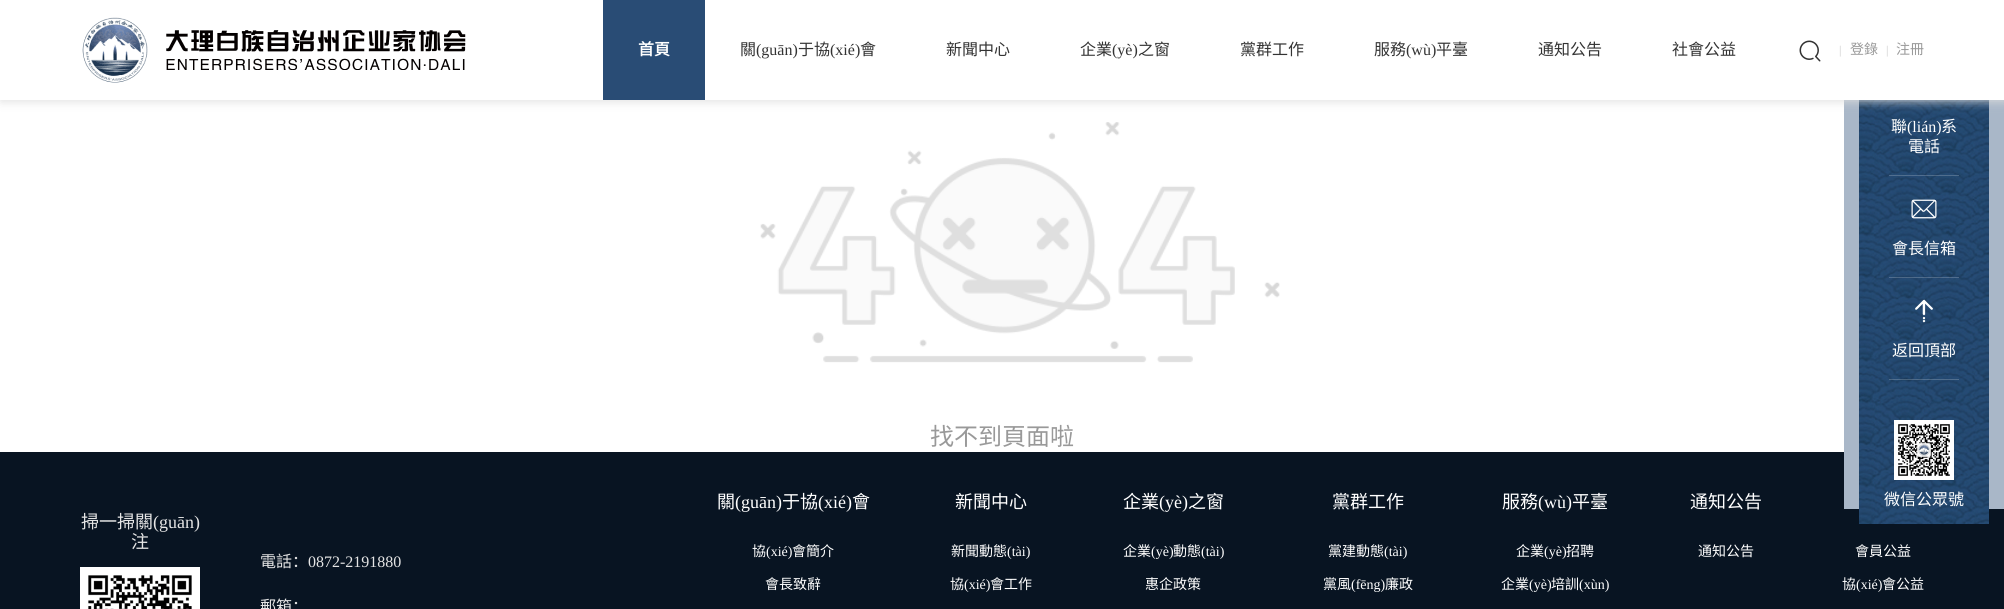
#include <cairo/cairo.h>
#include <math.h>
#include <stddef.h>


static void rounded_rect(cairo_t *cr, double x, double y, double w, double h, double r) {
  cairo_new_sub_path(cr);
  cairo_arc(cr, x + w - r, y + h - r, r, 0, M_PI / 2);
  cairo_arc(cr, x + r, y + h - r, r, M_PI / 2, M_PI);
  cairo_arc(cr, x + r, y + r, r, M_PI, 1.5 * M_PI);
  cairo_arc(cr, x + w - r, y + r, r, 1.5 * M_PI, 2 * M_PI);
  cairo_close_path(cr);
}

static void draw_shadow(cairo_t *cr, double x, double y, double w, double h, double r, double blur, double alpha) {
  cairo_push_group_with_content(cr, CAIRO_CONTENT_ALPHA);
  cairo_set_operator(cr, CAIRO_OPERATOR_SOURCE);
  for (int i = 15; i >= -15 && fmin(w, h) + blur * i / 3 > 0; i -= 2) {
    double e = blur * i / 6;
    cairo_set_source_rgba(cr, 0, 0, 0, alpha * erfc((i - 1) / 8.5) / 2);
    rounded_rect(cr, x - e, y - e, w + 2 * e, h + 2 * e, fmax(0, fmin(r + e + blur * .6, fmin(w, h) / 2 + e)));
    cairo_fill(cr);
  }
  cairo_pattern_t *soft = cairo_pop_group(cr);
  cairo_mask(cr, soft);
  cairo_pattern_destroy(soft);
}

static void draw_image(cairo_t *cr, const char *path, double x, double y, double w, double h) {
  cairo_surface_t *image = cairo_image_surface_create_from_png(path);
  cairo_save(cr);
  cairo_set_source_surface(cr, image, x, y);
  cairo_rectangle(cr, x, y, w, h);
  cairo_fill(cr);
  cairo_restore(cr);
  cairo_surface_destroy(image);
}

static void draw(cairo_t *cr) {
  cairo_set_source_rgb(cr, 1, 1, 1);
  cairo_paint(cr);
  cairo_set_source_rgb(cr, 8 / 255.0, 20 / 255.0, 34 / 255.0);
  cairo_rectangle(cr, 0, 452, 2004, 157);
  cairo_fill(cr);
  cairo_set_source_rgb(cr, 169 / 255.0, 183 / 255.0, 200 / 255.0);
  cairo_rectangle(cr, 1844, 100, 160, 409);
  cairo_fill(cr);
  draw_image(cr, "images/4.png", 1859, 100, 130, 424);
  cairo_set_source_rgb(cr, 221 / 255.0, 221 / 255.0, 221 / 255.0);
  draw_shadow(cr, 1, 1, 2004, 100, 0, 5, 1);
  cairo_set_source_rgb(cr, 1, 1, 1);
  cairo_rectangle(cr, 0, 0, 2004, 100);
  cairo_fill(cr);
  draw_image(cr, "images/1.png", 82, 17, 384, 66);
  cairo_set_source_rgb(cr, 41 / 255.0, 76 / 255.0, 117 / 255.0);
  cairo_rectangle(cr, 603, 0, 102, 100);
  cairo_fill(cr);
  draw_image(cr, "images/2.png", 1799, 40, 22, 22);
  draw_image(cr, "images/3.png", 760, 122, 520, 241);
  cairo_set_source_rgba(cr, 1, 1, 1, 0.2);
  cairo_rectangle(cr, 1889, 175, 70, 1);
  cairo_fill(cr);
  cairo_rectangle(cr, 1889, 277, 70, 1);
  cairo_fill(cr);
  draw_image(cr, "images/5.png", 1911, 199, 26, 20);
  cairo_rectangle(cr, 1889, 379, 70, 1);
  cairo_fill(cr);
  draw_image(cr, "images/6.png", 1915, 299, 18, 24);
  draw_image(cr, "images/7.png", 1894, 420, 60, 60);
  draw_image(cr, "images/8.png", 80, 567, 120, 42);
  cairo_select_font_face(cr, "Noto Sans CJK SC", CAIRO_FONT_SLANT_NORMAL, CAIRO_FONT_WEIGHT_BOLD);
  cairo_set_font_size(cr, 16);
  cairo_set_source_rgb(cr, 1, 1, 1);
  cairo_move_to(cr, 638, 55);
  cairo_show_text(cr, "首頁");
  cairo_select_font_face(cr, "Noto Sans CJK SC", CAIRO_FONT_SLANT_NORMAL, CAIRO_FONT_WEIGHT_NORMAL);
  cairo_set_source_rgb(cr, 51 / 255.0, 51 / 255.0, 51 / 255.0);
  cairo_move_to(cr, 740, 55);
  cairo_show_text(cr, "關");
  cairo_select_font_face(cr, "Liberation Serif", CAIRO_FONT_SLANT_NORMAL, CAIRO_FONT_WEIGHT_NORMAL);
  cairo_move_to(cr, 756, 55);
  cairo_show_text(cr, "(guān)");
  cairo_select_font_face(cr, "Noto Sans CJK SC", CAIRO_FONT_SLANT_NORMAL, CAIRO_FONT_WEIGHT_NORMAL);
  cairo_move_to(cr, 798, 55);
  cairo_show_text(cr, "于協");
  cairo_select_font_face(cr, "Liberation Serif", CAIRO_FONT_SLANT_NORMAL, CAIRO_FONT_WEIGHT_NORMAL);
  cairo_move_to(cr, 830, 55);
  cairo_show_text(cr, "(xié)");
  cairo_select_font_face(cr, "Noto Sans CJK SC", CAIRO_FONT_SLANT_NORMAL, CAIRO_FONT_WEIGHT_NORMAL);
  cairo_move_to(cr, 860, 55);
  cairo_show_text(cr, "會");
  cairo_move_to(cr, 946, 55);
  cairo_show_text(cr, "新聞中心");
  cairo_move_to(cr, 1080, 55);
  cairo_show_text(cr, "企業");
  cairo_select_font_face(cr, "Liberation Serif", CAIRO_FONT_SLANT_NORMAL, CAIRO_FONT_WEIGHT_NORMAL);
  cairo_move_to(cr, 1112, 55);
  cairo_show_text(cr, "(yè)");
  cairo_select_font_face(cr, "Noto Sans CJK SC", CAIRO_FONT_SLANT_NORMAL, CAIRO_FONT_WEIGHT_NORMAL);
  cairo_move_to(cr, 1138, 55);
  cairo_show_text(cr, "之窗");
  cairo_move_to(cr, 1240, 55);
  cairo_show_text(cr, "黨群工作");
  cairo_move_to(cr, 1374, 55);
  cairo_show_text(cr, "服務");
  cairo_select_font_face(cr, "Liberation Serif", CAIRO_FONT_SLANT_NORMAL, CAIRO_FONT_WEIGHT_NORMAL);
  cairo_move_to(cr, 1406, 55);
  cairo_show_text(cr, "(wù)");
  cairo_select_font_face(cr, "Noto Sans CJK SC", CAIRO_FONT_SLANT_NORMAL, CAIRO_FONT_WEIGHT_NORMAL);
  cairo_move_to(cr, 1436, 55);
  cairo_show_text(cr, "平臺");
  cairo_move_to(cr, 1538, 55);
  cairo_show_text(cr, "通知公告");
  cairo_move_to(cr, 1672, 55);
  cairo_show_text(cr, "社會公益");
  cairo_select_font_face(cr, "Liberation Serif", CAIRO_FONT_SLANT_NORMAL, CAIRO_FONT_WEIGHT_NORMAL);
  cairo_set_font_size(cr, 12);
  cairo_set_source_rgb(cr, 204 / 255.0, 204 / 255.0, 204 / 255.0);
  cairo_move_to(cr, 1839, 54);
  cairo_show_text(cr, "|");
  cairo_select_font_face(cr, "Noto Sans CJK SC", CAIRO_FONT_SLANT_NORMAL, CAIRO_FONT_WEIGHT_NORMAL);
  cairo_set_font_size(cr, 14);
  cairo_set_source_rgb(cr, 153 / 255.0, 153 / 255.0, 153 / 255.0);
  cairo_move_to(cr, 1850, 54);
  cairo_show_text(cr, "登錄");
  cairo_select_font_face(cr, "Liberation Serif", CAIRO_FONT_SLANT_NORMAL, CAIRO_FONT_WEIGHT_NORMAL);
  cairo_set_font_size(cr, 12);
  cairo_set_source_rgb(cr, 204 / 255.0, 204 / 255.0, 204 / 255.0);
  cairo_move_to(cr, 1886, 54);
  cairo_show_text(cr, "|");
  cairo_select_font_face(cr, "Noto Sans CJK SC", CAIRO_FONT_SLANT_NORMAL, CAIRO_FONT_WEIGHT_NORMAL);
  cairo_set_font_size(cr, 14);
  cairo_set_source_rgb(cr, 153 / 255.0, 153 / 255.0, 153 / 255.0);
  cairo_move_to(cr, 1896, 54);
  cairo_show_text(cr, "注冊");
  cairo_set_font_size(cr, 24);
  cairo_move_to(cr, 930, 445);
  cairo_show_text(cr, "找不到頁面啦");
  cairo_set_font_size(cr, 16);
  cairo_set_source_rgb(cr, 1, 1, 1);
  cairo_move_to(cr, 1891, 132);
  cairo_show_text(cr, "聯");
  cairo_select_font_face(cr, "Liberation Serif", CAIRO_FONT_SLANT_NORMAL, CAIRO_FONT_WEIGHT_NORMAL);
  cairo_move_to(cr, 1907, 132);
  cairo_show_text(cr, "(lián)");
  cairo_select_font_face(cr, "Noto Sans CJK SC", CAIRO_FONT_SLANT_NORMAL, CAIRO_FONT_WEIGHT_NORMAL);
  cairo_move_to(cr, 1941, 132);
  cairo_show_text(cr, "系");
  cairo_move_to(cr, 1908, 152);
  cairo_show_text(cr, "電話");
  cairo_move_to(cr, 1892, 254);
  cairo_show_text(cr, "會長信箱");
  cairo_move_to(cr, 1892, 356);
  cairo_show_text(cr, "返回頂部");
  cairo_move_to(cr, 1884, 505);
  cairo_show_text(cr, "微信公眾號");
  cairo_set_font_size(cr, 18);
  cairo_set_source_rgb(cr, 229 / 255.0, 229 / 255.0, 229 / 255.0);
  cairo_move_to(cr, 81, 528);
  cairo_show_text(cr, "掃一掃關");
  cairo_select_font_face(cr, "Liberation Serif", CAIRO_FONT_SLANT_NORMAL, CAIRO_FONT_WEIGHT_NORMAL);
  cairo_move_to(cr, 153, 528);
  cairo_show_text(cr, "(guān)");
  cairo_select_font_face(cr, "Noto Sans CJK SC", CAIRO_FONT_SLANT_NORMAL, CAIRO_FONT_WEIGHT_NORMAL);
  cairo_move_to(cr, 131, 548);
  cairo_show_text(cr, "注");
  cairo_set_font_size(cr, 16);
  cairo_move_to(cr, 260, 567);
  cairo_show_text(cr, "電話：");
  cairo_select_font_face(cr, "Liberation Serif", CAIRO_FONT_SLANT_NORMAL, CAIRO_FONT_WEIGHT_NORMAL);
  cairo_move_to(cr, 308, 567);
  cairo_show_text(cr, "0872-2191880");
  cairo_select_font_face(cr, "Noto Sans CJK SC", CAIRO_FONT_SLANT_NORMAL, CAIRO_FONT_WEIGHT_NORMAL);
  cairo_move_to(cr, 260, 612);
  cairo_show_text(cr, "郵箱：");
  cairo_set_font_size(cr, 18);
  cairo_set_source_rgb(cr, 1, 1, 1);
  cairo_move_to(cr, 717, 508);
  cairo_show_text(cr, "關");
  cairo_select_font_face(cr, "Liberation Serif", CAIRO_FONT_SLANT_NORMAL, CAIRO_FONT_WEIGHT_NORMAL);
  cairo_move_to(cr, 735, 508);
  cairo_show_text(cr, "(guān)");
  cairo_select_font_face(cr, "Noto Sans CJK SC", CAIRO_FONT_SLANT_NORMAL, CAIRO_FONT_WEIGHT_NORMAL);
  cairo_move_to(cr, 782, 508);
  cairo_show_text(cr, "于協");
  cairo_select_font_face(cr, "Liberation Serif", CAIRO_FONT_SLANT_NORMAL, CAIRO_FONT_WEIGHT_NORMAL);
  cairo_move_to(cr, 818, 508);
  cairo_show_text(cr, "(xié)");
  cairo_select_font_face(cr, "Noto Sans CJK SC", CAIRO_FONT_SLANT_NORMAL, CAIRO_FONT_WEIGHT_NORMAL);
  cairo_move_to(cr, 852, 508);
  cairo_show_text(cr, "會");
  cairo_set_font_size(cr, 14);
  cairo_move_to(cr, 752, 556);
  cairo_show_text(cr, "協");
  cairo_select_font_face(cr, "Liberation Serif", CAIRO_FONT_SLANT_NORMAL, CAIRO_FONT_WEIGHT_NORMAL);
  cairo_move_to(cr, 766, 556);
  cairo_show_text(cr, "(xié)");
  cairo_select_font_face(cr, "Noto Sans CJK SC", CAIRO_FONT_SLANT_NORMAL, CAIRO_FONT_WEIGHT_NORMAL);
  cairo_move_to(cr, 792, 556);
  cairo_show_text(cr, "會簡介");
  cairo_move_to(cr, 765, 589);
  cairo_show_text(cr, "會長致辭");
  cairo_set_font_size(cr, 18);
  cairo_move_to(cr, 955, 508);
  cairo_show_text(cr, "新聞中心");
  cairo_set_font_size(cr, 14);
  cairo_move_to(cr, 951, 556);
  cairo_show_text(cr, "新聞動態");
  cairo_select_font_face(cr, "Liberation Serif", CAIRO_FONT_SLANT_NORMAL, CAIRO_FONT_WEIGHT_NORMAL);
  cairo_move_to(cr, 1007, 556);
  cairo_show_text(cr, "(tài)");
  cairo_select_font_face(cr, "Noto Sans CJK SC", CAIRO_FONT_SLANT_NORMAL, CAIRO_FONT_WEIGHT_NORMAL);
  cairo_move_to(cr, 950, 589);
  cairo_show_text(cr, "協");
  cairo_select_font_face(cr, "Liberation Serif", CAIRO_FONT_SLANT_NORMAL, CAIRO_FONT_WEIGHT_NORMAL);
  cairo_move_to(cr, 964, 589);
  cairo_show_text(cr, "(xié)");
  cairo_select_font_face(cr, "Noto Sans CJK SC", CAIRO_FONT_SLANT_NORMAL, CAIRO_FONT_WEIGHT_NORMAL);
  cairo_move_to(cr, 990, 589);
  cairo_show_text(cr, "會工作");
  cairo_set_font_size(cr, 18);
  cairo_move_to(cr, 1123, 508);
  cairo_show_text(cr, "企業");
  cairo_select_font_face(cr, "Liberation Serif", CAIRO_FONT_SLANT_NORMAL, CAIRO_FONT_WEIGHT_NORMAL);
  cairo_move_to(cr, 1159, 508);
  cairo_show_text(cr, "(yè)");
  cairo_select_font_face(cr, "Noto Sans CJK SC", CAIRO_FONT_SLANT_NORMAL, CAIRO_FONT_WEIGHT_NORMAL);
  cairo_move_to(cr, 1188, 508);
  cairo_show_text(cr, "之窗");
  cairo_set_font_size(cr, 14);
  cairo_move_to(cr, 1123, 556);
  cairo_show_text(cr, "企業");
  cairo_select_font_face(cr, "Liberation Serif", CAIRO_FONT_SLANT_NORMAL, CAIRO_FONT_WEIGHT_NORMAL);
  cairo_move_to(cr, 1151, 556);
  cairo_show_text(cr, "(yè)");
  cairo_select_font_face(cr, "Noto Sans CJK SC", CAIRO_FONT_SLANT_NORMAL, CAIRO_FONT_WEIGHT_NORMAL);
  cairo_move_to(cr, 1173, 556);
  cairo_show_text(cr, "動態");
  cairo_select_font_face(cr, "Liberation Serif", CAIRO_FONT_SLANT_NORMAL, CAIRO_FONT_WEIGHT_NORMAL);
  cairo_move_to(cr, 1201, 556);
  cairo_show_text(cr, "(tài)");
  cairo_select_font_face(cr, "Noto Sans CJK SC", CAIRO_FONT_SLANT_NORMAL, CAIRO_FONT_WEIGHT_NORMAL);
  cairo_move_to(cr, 1145, 589);
  cairo_show_text(cr, "惠企政策");
  cairo_set_font_size(cr, 18);
  cairo_move_to(cr, 1332, 508);
  cairo_show_text(cr, "黨群工作");
  cairo_set_font_size(cr, 14);
  cairo_move_to(cr, 1328, 556);
  cairo_show_text(cr, "黨建動態");
  cairo_select_font_face(cr, "Liberation Serif", CAIRO_FONT_SLANT_NORMAL, CAIRO_FONT_WEIGHT_NORMAL);
  cairo_move_to(cr, 1384, 556);
  cairo_show_text(cr, "(tài)");
  cairo_select_font_face(cr, "Noto Sans CJK SC", CAIRO_FONT_SLANT_NORMAL, CAIRO_FONT_WEIGHT_NORMAL);
  cairo_move_to(cr, 1323, 589);
  cairo_show_text(cr, "黨風");
  cairo_select_font_face(cr, "Liberation Serif", CAIRO_FONT_SLANT_NORMAL, CAIRO_FONT_WEIGHT_NORMAL);
  cairo_move_to(cr, 1351, 589);
  cairo_show_text(cr, "(fēng)");
  cairo_select_font_face(cr, "Noto Sans CJK SC", CAIRO_FONT_SLANT_NORMAL, CAIRO_FONT_WEIGHT_NORMAL);
  cairo_move_to(cr, 1385, 589);
  cairo_show_text(cr, "廉政");
  cairo_set_font_size(cr, 18);
  cairo_move_to(cr, 1502, 508);
  cairo_show_text(cr, "服務");
  cairo_select_font_face(cr, "Liberation Serif", CAIRO_FONT_SLANT_NORMAL, CAIRO_FONT_WEIGHT_NORMAL);
  cairo_move_to(cr, 1538, 508);
  cairo_show_text(cr, "(wù)");
  cairo_select_font_face(cr, "Noto Sans CJK SC", CAIRO_FONT_SLANT_NORMAL, CAIRO_FONT_WEIGHT_NORMAL);
  cairo_move_to(cr, 1572, 508);
  cairo_show_text(cr, "平臺");
  cairo_set_font_size(cr, 14);
  cairo_move_to(cr, 1516, 556);
  cairo_show_text(cr, "企業");
  cairo_select_font_face(cr, "Liberation Serif", CAIRO_FONT_SLANT_NORMAL, CAIRO_FONT_WEIGHT_NORMAL);
  cairo_move_to(cr, 1544, 556);
  cairo_show_text(cr, "(yè)");
  cairo_select_font_face(cr, "Noto Sans CJK SC", CAIRO_FONT_SLANT_NORMAL, CAIRO_FONT_WEIGHT_NORMAL);
  cairo_move_to(cr, 1566, 556);
  cairo_show_text(cr, "招聘");
  cairo_move_to(cr, 1501, 589);
  cairo_show_text(cr, "企業");
  cairo_select_font_face(cr, "Liberation Serif", CAIRO_FONT_SLANT_NORMAL, CAIRO_FONT_WEIGHT_NORMAL);
  cairo_move_to(cr, 1529, 589);
  cairo_show_text(cr, "(yè)");
  cairo_select_font_face(cr, "Noto Sans CJK SC", CAIRO_FONT_SLANT_NORMAL, CAIRO_FONT_WEIGHT_NORMAL);
  cairo_move_to(cr, 1551, 589);
  cairo_show_text(cr, "培訓");
  cairo_select_font_face(cr, "Liberation Serif", CAIRO_FONT_SLANT_NORMAL, CAIRO_FONT_WEIGHT_NORMAL);
  cairo_move_to(cr, 1579, 589);
  cairo_show_text(cr, "(xùn)");
  cairo_select_font_face(cr, "Noto Sans CJK SC", CAIRO_FONT_SLANT_NORMAL, CAIRO_FONT_WEIGHT_NORMAL);
  cairo_set_font_size(cr, 18);
  cairo_move_to(cr, 1690, 508);
  cairo_show_text(cr, "通知公告");
  cairo_set_font_size(cr, 14);
  cairo_move_to(cr, 1698, 556);
  cairo_show_text(cr, "通知公告");
  cairo_move_to(cr, 1855, 556);
  cairo_show_text(cr, "會員公益");
  cairo_move_to(cr, 1842, 589);
  cairo_show_text(cr, "協");
  cairo_select_font_face(cr, "Liberation Serif", CAIRO_FONT_SLANT_NORMAL, CAIRO_FONT_WEIGHT_NORMAL);
  cairo_move_to(cr, 1856, 589);
  cairo_show_text(cr, "(xié)");
  cairo_select_font_face(cr, "Noto Sans CJK SC", CAIRO_FONT_SLANT_NORMAL, CAIRO_FONT_WEIGHT_NORMAL);
  cairo_move_to(cr, 1882, 589);
  cairo_show_text(cr, "會公益");
}

int main(void) {
  cairo_surface_t *surface = cairo_image_surface_create(CAIRO_FORMAT_RGB24, 2004, 609);
  cairo_t *cr = cairo_create(surface);
  cairo_font_options_t *options = cairo_font_options_create();
  cairo_font_options_set_hint_metrics(options, CAIRO_HINT_METRICS_OFF);
  cairo_font_options_set_hint_style(options, CAIRO_HINT_STYLE_NONE);
  cairo_set_font_options(cr, options);
  cairo_set_miter_limit(cr, 4);
  draw(cr);
  cairo_surface_write_to_png(surface, "out.png");
  cairo_font_options_destroy(options);
  cairo_destroy(cr);
  cairo_surface_destroy(surface);
  return 0;
}
